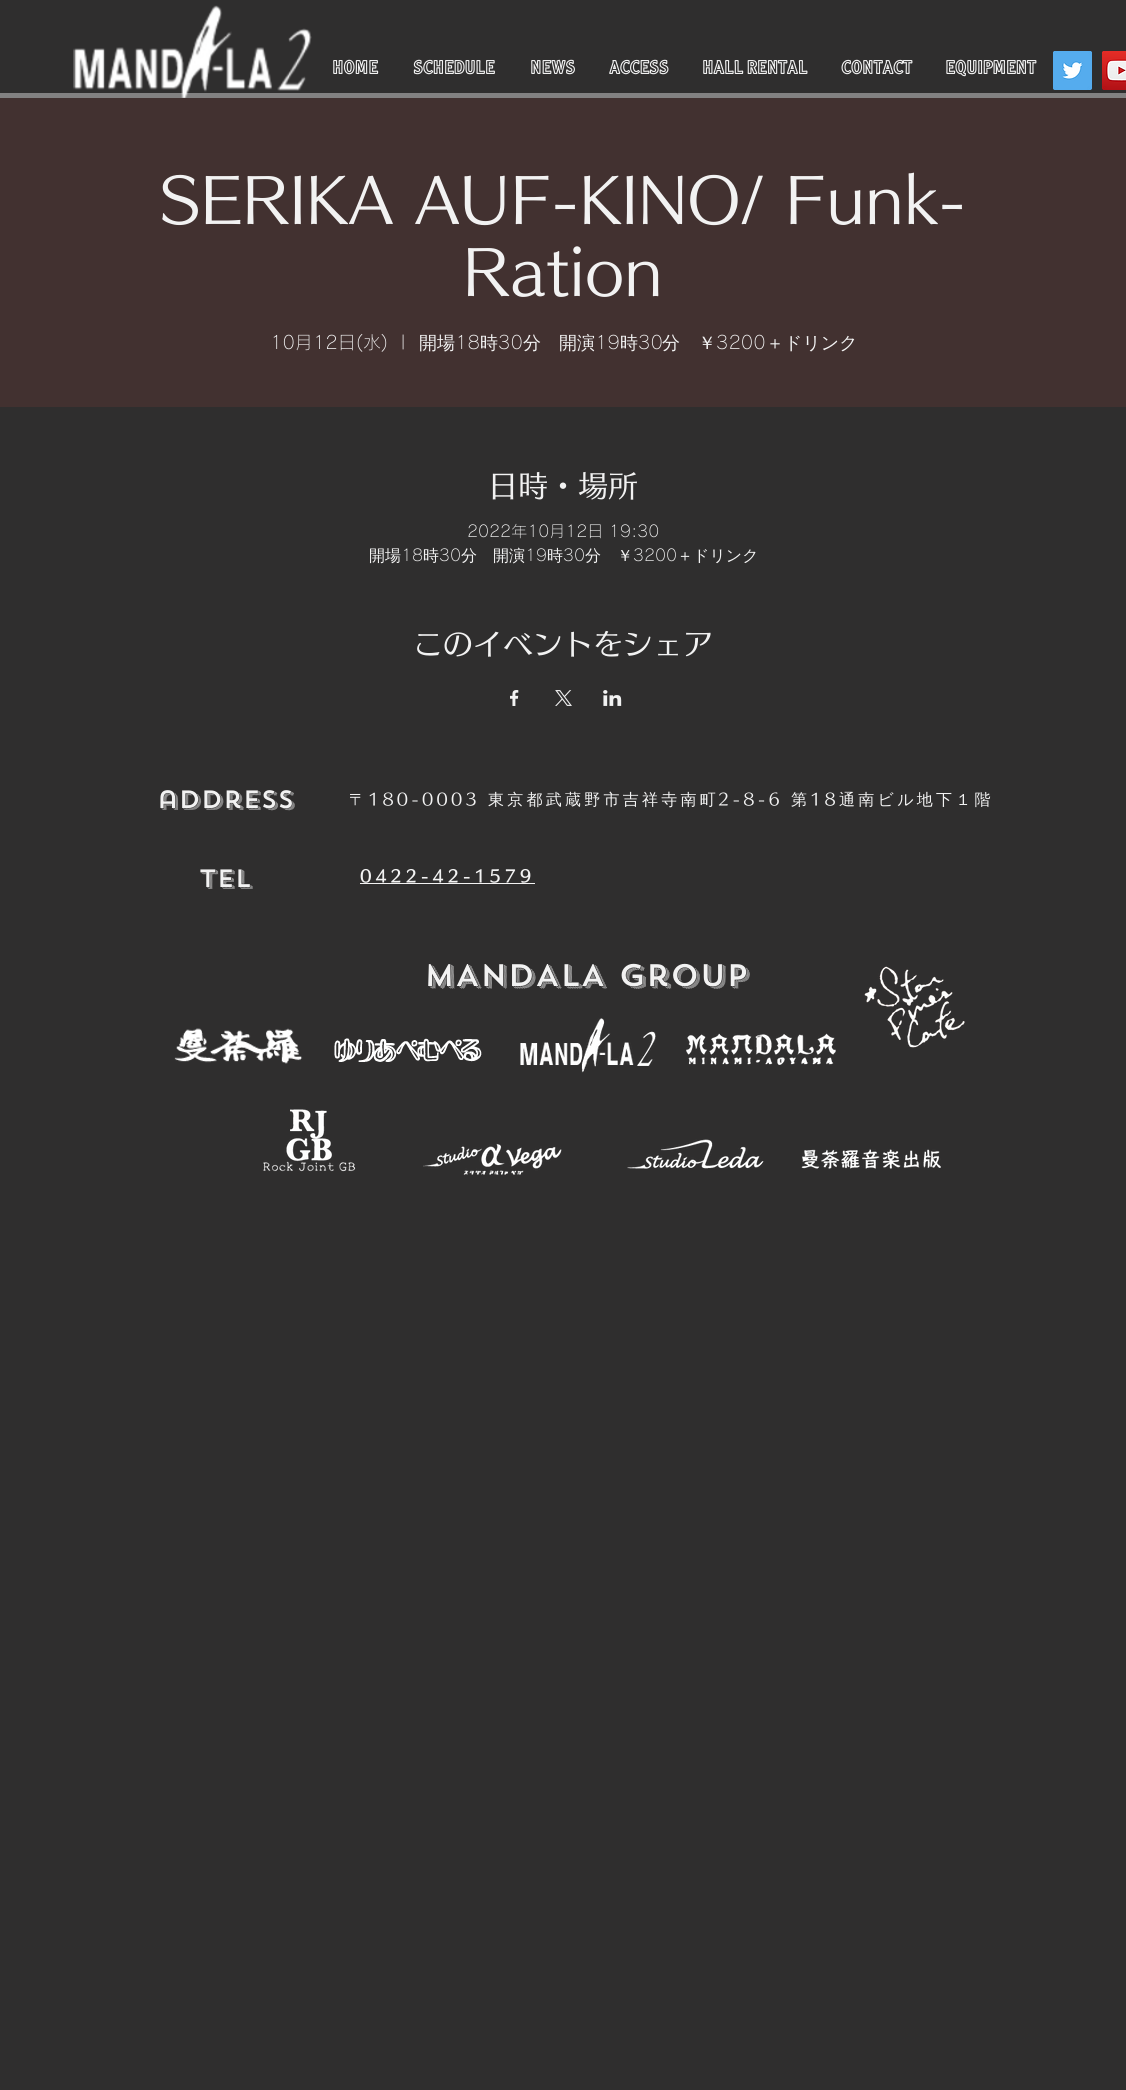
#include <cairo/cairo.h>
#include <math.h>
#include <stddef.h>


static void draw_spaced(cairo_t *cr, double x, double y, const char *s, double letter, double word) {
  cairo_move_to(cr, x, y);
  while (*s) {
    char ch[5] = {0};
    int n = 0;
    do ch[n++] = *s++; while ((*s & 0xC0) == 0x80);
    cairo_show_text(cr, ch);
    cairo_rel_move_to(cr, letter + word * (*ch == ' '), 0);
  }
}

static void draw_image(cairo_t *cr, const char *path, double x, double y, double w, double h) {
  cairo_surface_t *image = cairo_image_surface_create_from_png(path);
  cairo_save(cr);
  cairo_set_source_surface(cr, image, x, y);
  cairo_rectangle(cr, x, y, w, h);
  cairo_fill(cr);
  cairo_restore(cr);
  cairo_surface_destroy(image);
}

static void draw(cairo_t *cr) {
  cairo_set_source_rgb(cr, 47 / 255.0, 46 / 255.0, 46 / 255.0);
  cairo_paint(cr);
  cairo_set_source_rgb(cr, 130 / 255.0, 129 / 255.0, 129 / 255.0);
  cairo_rectangle(cr, 0, 93, 1126, 5);
  cairo_fill(cr);
  draw_image(cr, "images/1.png", 73, 5, 239, 93);
  draw_image(cr, "images/2.png", 1053, 51, 39, 39);
  draw_image(cr, "images/3.png", 1102, 51, 24, 39);
  cairo_set_source_rgb(cr, 66 / 255.0, 49 / 255.0, 48 / 255.0);
  cairo_rectangle(cr, 0, 98, 1126, 309);
  cairo_fill(cr);
  draw_image(cr, "images/4.png", 510, 690, 9, 16);
  draw_image(cr, "images/5.png", 555, 690, 17, 16);
  draw_image(cr, "images/6.png", 603, 690, 19, 16);
  cairo_set_source_rgb(cr, 242 / 255.0, 242 / 255.0, 242 / 255.0);
  cairo_rectangle(cr, 360, 883, 175, 1);
  cairo_fill(cr);
  draw_image(cr, "images/7.png", 864, 966, 101, 82);
  draw_image(cr, "images/8.png", 174, 1028, 129, 36);
  draw_image(cr, "images/9.png", 334, 1038, 148, 24);
  draw_image(cr, "images/10.png", 520, 1018, 136, 55);
  draw_image(cr, "images/11.png", 686, 1033, 150, 32);
  draw_image(cr, "images/12.png", 263, 1109, 93, 63);
  draw_image(cr, "images/13.png", 423, 1143, 139, 32);
  draw_image(cr, "images/14.png", 627, 1139, 137, 30);
  draw_image(cr, "images/15.png", 801, 1149, 140, 20);
  cairo_select_font_face(cr, "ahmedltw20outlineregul", CAIRO_FONT_SLANT_NORMAL, CAIRO_FONT_WEIGHT_BOLD);
  cairo_set_font_size(cr, 21);
  cairo_move_to(cr, 332, 74);
  cairo_show_text(cr, "HOME");
  cairo_move_to(cr, 413, 74);
  cairo_show_text(cr, "SCHEDULE");
  cairo_move_to(cr, 530, 74);
  cairo_show_text(cr, "NEWS");
  cairo_move_to(cr, 609, 74);
  cairo_show_text(cr, "ACCESS");
  cairo_move_to(cr, 702, 74);
  cairo_show_text(cr, "HALL RENTAL");
  cairo_move_to(cr, 841, 74);
  cairo_show_text(cr, "CONTACT");
  cairo_move_to(cr, 945, 74);
  cairo_show_text(cr, "EQUIPMENT");
  cairo_select_font_face(cr, "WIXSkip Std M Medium", CAIRO_FONT_SLANT_NORMAL, CAIRO_FONT_WEIGHT_NORMAL);
  cairo_set_font_size(cr, 60);
  cairo_move_to(cr, 159, 222);
  cairo_show_text(cr, "SERIKA AUF-KINO/ Funk-");
  cairo_move_to(cr, 463, 294);
  cairo_show_text(cr, "Ration");
  cairo_select_font_face(cr, "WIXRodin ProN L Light", CAIRO_FONT_SLANT_NORMAL, CAIRO_FONT_WEIGHT_NORMAL);
  cairo_set_font_size(cr, 18);
  cairo_move_to(cr, 270, 349);
  cairo_show_text(cr, "10月12日(水)");
  cairo_move_to(cr, 400, 349);
  cairo_show_text(cr, "|");
  cairo_select_font_face(cr, "WenQuanYi Zen Hei Medium", CAIRO_FONT_SLANT_NORMAL, CAIRO_FONT_WEIGHT_NORMAL);
  cairo_move_to(cr, 419, 349);
  cairo_show_text(cr, "開場");
  cairo_select_font_face(cr, "WIXRodin ProN L Light", CAIRO_FONT_SLANT_NORMAL, CAIRO_FONT_WEIGHT_NORMAL);
  cairo_move_to(cr, 455, 349);
  cairo_show_text(cr, "18");
  cairo_select_font_face(cr, "WenQuanYi Zen Hei Medium", CAIRO_FONT_SLANT_NORMAL, CAIRO_FONT_WEIGHT_NORMAL);
  cairo_move_to(cr, 480, 349);
  cairo_show_text(cr, "時");
  cairo_select_font_face(cr, "WIXRodin ProN L Light", CAIRO_FONT_SLANT_NORMAL, CAIRO_FONT_WEIGHT_NORMAL);
  cairo_move_to(cr, 498, 349);
  cairo_show_text(cr, "30");
  cairo_select_font_face(cr, "WenQuanYi Zen Hei Medium", CAIRO_FONT_SLANT_NORMAL, CAIRO_FONT_WEIGHT_NORMAL);
  cairo_move_to(cr, 523, 349);
  cairo_show_text(cr, "分　開演");
  cairo_select_font_face(cr, "WIXRodin ProN L Light", CAIRO_FONT_SLANT_NORMAL, CAIRO_FONT_WEIGHT_NORMAL);
  cairo_move_to(cr, 595, 349);
  cairo_show_text(cr, "19");
  cairo_select_font_face(cr, "WenQuanYi Zen Hei Medium", CAIRO_FONT_SLANT_NORMAL, CAIRO_FONT_WEIGHT_NORMAL);
  cairo_move_to(cr, 620, 349);
  cairo_show_text(cr, "時");
  cairo_select_font_face(cr, "WIXRodin ProN L Light", CAIRO_FONT_SLANT_NORMAL, CAIRO_FONT_WEIGHT_NORMAL);
  cairo_move_to(cr, 638, 349);
  cairo_show_text(cr, "30");
  cairo_select_font_face(cr, "WenQuanYi Zen Hei Medium", CAIRO_FONT_SLANT_NORMAL, CAIRO_FONT_WEIGHT_NORMAL);
  cairo_move_to(cr, 662, 349);
  cairo_show_text(cr, "分　￥");
  cairo_select_font_face(cr, "WIXRodin ProN L Light", CAIRO_FONT_SLANT_NORMAL, CAIRO_FONT_WEIGHT_NORMAL);
  cairo_move_to(cr, 716, 349);
  cairo_show_text(cr, "3200");
  cairo_select_font_face(cr, "WenQuanYi Zen Hei Medium", CAIRO_FONT_SLANT_NORMAL, CAIRO_FONT_WEIGHT_NORMAL);
  cairo_move_to(cr, 766, 349);
  cairo_show_text(cr, "＋ドリンク");
  cairo_select_font_face(cr, "WIXSkip Std M Medium", CAIRO_FONT_SLANT_NORMAL, CAIRO_FONT_WEIGHT_NORMAL);
  cairo_set_font_size(cr, 30);
  cairo_move_to(cr, 488, 497);
  cairo_show_text(cr, "日時・場所");
  cairo_select_font_face(cr, "WIXRodin ProN L Light", CAIRO_FONT_SLANT_NORMAL, CAIRO_FONT_WEIGHT_NORMAL);
  cairo_set_font_size(cr, 16);
  cairo_move_to(cr, 467, 537);
  cairo_show_text(cr, "2022年10月12日 19:30");
  cairo_select_font_face(cr, "WenQuanYi Zen Hei Medium", CAIRO_FONT_SLANT_NORMAL, CAIRO_FONT_WEIGHT_NORMAL);
  cairo_move_to(cr, 369, 561);
  cairo_show_text(cr, "開場");
  cairo_select_font_face(cr, "WIXRodin ProN L Light", CAIRO_FONT_SLANT_NORMAL, CAIRO_FONT_WEIGHT_NORMAL);
  cairo_move_to(cr, 401, 561);
  cairo_show_text(cr, "18");
  cairo_select_font_face(cr, "WenQuanYi Zen Hei Medium", CAIRO_FONT_SLANT_NORMAL, CAIRO_FONT_WEIGHT_NORMAL);
  cairo_move_to(cr, 423, 561);
  cairo_show_text(cr, "時");
  cairo_select_font_face(cr, "WIXRodin ProN L Light", CAIRO_FONT_SLANT_NORMAL, CAIRO_FONT_WEIGHT_NORMAL);
  cairo_move_to(cr, 439, 561);
  cairo_show_text(cr, "30");
  cairo_select_font_face(cr, "WenQuanYi Zen Hei Medium", CAIRO_FONT_SLANT_NORMAL, CAIRO_FONT_WEIGHT_NORMAL);
  cairo_move_to(cr, 461, 561);
  cairo_show_text(cr, "分　開演");
  cairo_select_font_face(cr, "WIXRodin ProN L Light", CAIRO_FONT_SLANT_NORMAL, CAIRO_FONT_WEIGHT_NORMAL);
  cairo_move_to(cr, 525, 561);
  cairo_show_text(cr, "19");
  cairo_select_font_face(cr, "WenQuanYi Zen Hei Medium", CAIRO_FONT_SLANT_NORMAL, CAIRO_FONT_WEIGHT_NORMAL);
  cairo_move_to(cr, 547, 561);
  cairo_show_text(cr, "時");
  cairo_select_font_face(cr, "WIXRodin ProN L Light", CAIRO_FONT_SLANT_NORMAL, CAIRO_FONT_WEIGHT_NORMAL);
  cairo_move_to(cr, 563, 561);
  cairo_show_text(cr, "30");
  cairo_select_font_face(cr, "WenQuanYi Zen Hei Medium", CAIRO_FONT_SLANT_NORMAL, CAIRO_FONT_WEIGHT_NORMAL);
  cairo_move_to(cr, 585, 561);
  cairo_show_text(cr, "分　￥");
  cairo_select_font_face(cr, "WIXRodin ProN L Light", CAIRO_FONT_SLANT_NORMAL, CAIRO_FONT_WEIGHT_NORMAL);
  cairo_move_to(cr, 633, 561);
  cairo_show_text(cr, "3200");
  cairo_select_font_face(cr, "WenQuanYi Zen Hei Medium", CAIRO_FONT_SLANT_NORMAL, CAIRO_FONT_WEIGHT_NORMAL);
  cairo_move_to(cr, 677, 561);
  cairo_show_text(cr, "＋ドリンク");
  cairo_select_font_face(cr, "WIXSkip Std M Medium", CAIRO_FONT_SLANT_NORMAL, CAIRO_FONT_WEIGHT_NORMAL);
  cairo_set_font_size(cr, 30);
  cairo_move_to(cr, 413, 655);
  cairo_show_text(cr, "このイベントをシェア");
  cairo_select_font_face(cr, "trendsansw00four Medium", CAIRO_FONT_SLANT_NORMAL, CAIRO_FONT_WEIGHT_NORMAL);
  cairo_set_font_size(cr, 25);
  cairo_move_to(cr, 157, 808);
  cairo_show_text(cr, "address");
  cairo_select_font_face(cr, "WenQuanYi Zen Hei Medium", CAIRO_FONT_SLANT_NORMAL, CAIRO_FONT_WEIGHT_NORMAL);
  cairo_set_font_size(cr, 16);
  draw_spaced(cr, 349, 805, "〒", 3.25, 0);
  cairo_select_font_face(cr, "WIXSkip Std M Medium", CAIRO_FONT_SLANT_NORMAL, CAIRO_FONT_WEIGHT_NORMAL);
  draw_spaced(cr, 368, 805, "180-0003", 3.25, 0);
  cairo_select_font_face(cr, "WenQuanYi Zen Hei Medium", CAIRO_FONT_SLANT_NORMAL, CAIRO_FONT_WEIGHT_NORMAL);
  draw_spaced(cr, 488, 805, "東京都武蔵野市吉祥寺南町", 3.25, 0);
  cairo_select_font_face(cr, "WIXSkip Std M Medium", CAIRO_FONT_SLANT_NORMAL, CAIRO_FONT_WEIGHT_NORMAL);
  draw_spaced(cr, 718, 805, "2-8-6", 3.25, 0);
  cairo_select_font_face(cr, "WenQuanYi Zen Hei Medium", CAIRO_FONT_SLANT_NORMAL, CAIRO_FONT_WEIGHT_NORMAL);
  draw_spaced(cr, 791, 805, "第", 3.25, 0);
  cairo_select_font_face(cr, "WIXSkip Std M Medium", CAIRO_FONT_SLANT_NORMAL, CAIRO_FONT_WEIGHT_NORMAL);
  draw_spaced(cr, 810, 805, "18", 3.25, 0);
  cairo_select_font_face(cr, "WenQuanYi Zen Hei Medium", CAIRO_FONT_SLANT_NORMAL, CAIRO_FONT_WEIGHT_NORMAL);
  draw_spaced(cr, 839, 805, "通南ビル地下１階", 3.25, 0);
  cairo_select_font_face(cr, "trendsansw00four Medium", CAIRO_FONT_SLANT_NORMAL, CAIRO_FONT_WEIGHT_NORMAL);
  cairo_set_font_size(cr, 25);
  cairo_move_to(cr, 199, 887);
  cairo_show_text(cr, "TEL");
  cairo_select_font_face(cr, "WIXSkip Std M", CAIRO_FONT_SLANT_NORMAL, CAIRO_FONT_WEIGHT_BOLD);
  cairo_set_font_size(cr, 16);
  draw_spaced(cr, 360, 882, "0422-42-1579", 4, 0);
  cairo_select_font_face(cr, "trendsansw00four Medium", CAIRO_FONT_SLANT_NORMAL, CAIRO_FONT_WEIGHT_NORMAL);
  cairo_set_font_size(cr, 31);
  cairo_move_to(cr, 424, 986);
  cairo_show_text(cr, "MANDALA Group");
}

int main(void) {
  cairo_surface_t *surface = cairo_image_surface_create(CAIRO_FORMAT_RGB24, 1126, 2090);
  cairo_t *cr = cairo_create(surface);
  cairo_font_options_t *options = cairo_font_options_create();
  cairo_font_options_set_hint_metrics(options, CAIRO_HINT_METRICS_OFF);
  cairo_font_options_set_hint_style(options, CAIRO_HINT_STYLE_NONE);
  cairo_set_font_options(cr, options);
  cairo_set_miter_limit(cr, 4);
  draw(cr);
  cairo_surface_write_to_png(surface, "out.png");
  cairo_font_options_destroy(options);
  cairo_destroy(cr);
  cairo_surface_destroy(surface);
  return 0;
}
